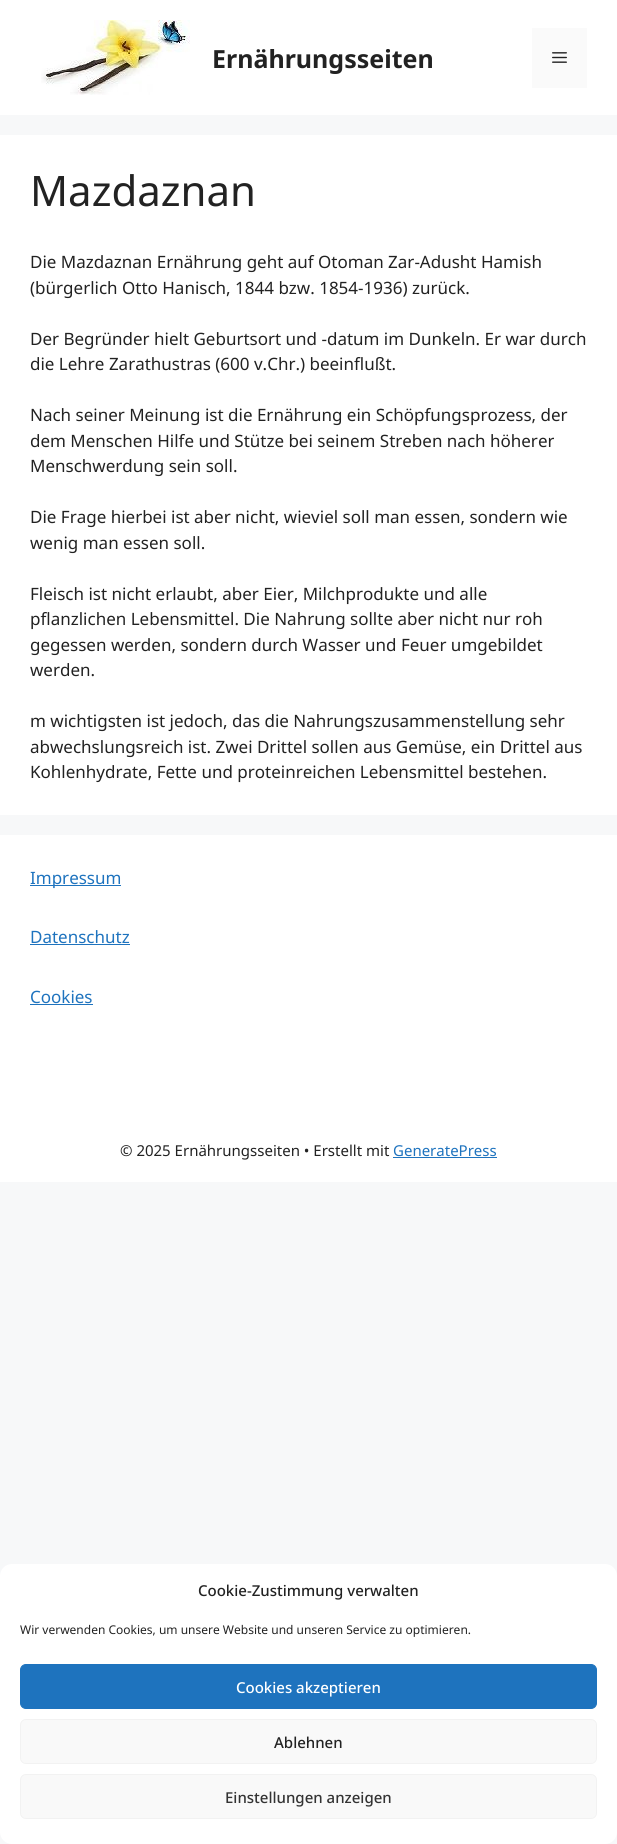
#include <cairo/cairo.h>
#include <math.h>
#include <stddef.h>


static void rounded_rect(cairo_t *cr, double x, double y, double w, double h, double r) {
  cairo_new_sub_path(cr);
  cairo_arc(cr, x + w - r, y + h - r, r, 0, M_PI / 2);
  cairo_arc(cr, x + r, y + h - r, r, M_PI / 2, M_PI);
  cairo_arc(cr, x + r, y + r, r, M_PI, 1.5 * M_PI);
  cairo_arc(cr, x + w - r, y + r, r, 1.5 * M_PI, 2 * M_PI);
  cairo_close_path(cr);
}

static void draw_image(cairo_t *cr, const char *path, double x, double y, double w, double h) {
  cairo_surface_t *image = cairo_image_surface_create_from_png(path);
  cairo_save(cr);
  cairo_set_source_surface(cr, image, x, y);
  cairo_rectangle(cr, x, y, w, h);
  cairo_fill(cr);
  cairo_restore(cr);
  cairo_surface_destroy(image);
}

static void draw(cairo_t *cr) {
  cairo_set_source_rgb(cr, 247 / 255.0, 248 / 255.0, 249 / 255.0);
  cairo_paint(cr);
  cairo_set_source_rgb(cr, 1, 1, 1);
  cairo_rectangle(cr, 0, 0, 617, 115);
  cairo_fill(cr);
  draw_image(cr, "images/1.png", 41, 20, 149, 75);
  cairo_set_source_rgb(cr, 250 / 255.0, 250 / 255.0, 250 / 255.0);
  cairo_rectangle(cr, 532, 28, 55, 60);
  cairo_fill(cr);
  draw_image(cr, "images/2.png", 552, 52, 15, 11);
  cairo_set_source_rgb(cr, 1, 1, 1);
  cairo_rectangle(cr, 0, 135, 617, 680);
  cairo_fill(cr);
  cairo_rectangle(cr, 0, 835, 617, 347);
  cairo_fill(cr);
  cairo_set_source_rgb(cr, 30 / 255.0, 115 / 255.0, 190 / 255.0);
  cairo_rectangle(cr, 30, 885, 91, 1);
  cairo_fill(cr);
  cairo_rectangle(cr, 30, 944, 100, 1);
  cairo_fill(cr);
  cairo_rectangle(cr, 30, 1004, 63, 1);
  cairo_fill(cr);
  cairo_rectangle(cr, 393, 1157, 104, 1);
  cairo_fill(cr);
  cairo_set_source_rgb(cr, 1, 1, 1);
  rounded_rect(cr, 0, 1564, 617, 280, 12);
  cairo_fill(cr);
  cairo_set_source_rgb(cr, 30 / 255.0, 115 / 255.0, 190 / 255.0);
  rounded_rect(cr, 20.5, 1664.5, 576, 44, 5.5);
  cairo_fill_preserve(cr);
  cairo_set_line_width(cr, 1);
  cairo_stroke(cr);
  cairo_set_source_rgb(cr, 249 / 255.0, 249 / 255.0, 249 / 255.0);
  rounded_rect(cr, 20.5, 1719.5, 576, 44, 5.5);
  cairo_fill_preserve(cr);
  cairo_set_source_rgb(cr, 242 / 255.0, 242 / 255.0, 242 / 255.0);
  cairo_stroke(cr);
  cairo_set_source_rgb(cr, 249 / 255.0, 249 / 255.0, 249 / 255.0);
  rounded_rect(cr, 20.5, 1774.5, 576, 44, 5.5);
  cairo_fill_preserve(cr);
  cairo_set_source_rgb(cr, 242 / 255.0, 242 / 255.0, 242 / 255.0);
  cairo_stroke(cr);
  cairo_select_font_face(cr, "Noto Sans", CAIRO_FONT_SLANT_NORMAL, CAIRO_FONT_WEIGHT_BOLD);
  cairo_set_font_size(cr, 25);
  cairo_set_source_rgb(cr, 34 / 255.0, 34 / 255.0, 34 / 255.0);
  cairo_move_to(cr, 212, 68);
  cairo_show_text(cr, "Ernährungsseiten");
  cairo_select_font_face(cr, "Noto Sans", CAIRO_FONT_SLANT_NORMAL, CAIRO_FONT_WEIGHT_NORMAL);
  cairo_set_font_size(cr, 42);
  cairo_move_to(cr, 30, 206);
  cairo_show_text(cr, "Mazdaznan");
  cairo_set_font_size(cr, 17);
  cairo_move_to(cr, 30, 268);
  cairo_show_text(cr, "Die Mazdaznan Ernährung geht auf Otoman Zar-Adusht Hamish");
  cairo_move_to(cr, 30, 294);
  cairo_show_text(cr, "(bürgerlich Otto Hanisch, 1844 bzw. 1854-1936) zurück.");
  cairo_move_to(cr, 30, 345);
  cairo_show_text(cr, "Der Begründer hielt Geburtsort und -datum im Dunkeln. Er war durch");
  cairo_move_to(cr, 30, 370);
  cairo_show_text(cr, "die Lehre Zarathustras (600 v.Chr.) beeinflußt.");
  cairo_move_to(cr, 30, 421);
  cairo_show_text(cr, "Nach seiner Meinung ist die Ernährung ein Schöpfungsprozess, der");
  cairo_move_to(cr, 30, 447);
  cairo_show_text(cr, "dem Menschen Hilfe und Stütze bei seinem Streben nach höherer");
  cairo_move_to(cr, 30, 472);
  cairo_show_text(cr, "Menschwerdung sein soll.");
  cairo_move_to(cr, 30, 523);
  cairo_show_text(cr, "Die Frage hierbei ist aber nicht, wieviel soll man essen, sondern wie");
  cairo_move_to(cr, 30, 549);
  cairo_show_text(cr, "wenig man essen soll.");
  cairo_move_to(cr, 30, 600);
  cairo_show_text(cr, "Fleisch ist nicht erlaubt, aber Eier, Milchprodukte und alle");
  cairo_move_to(cr, 30, 625);
  cairo_show_text(cr, "pflanzlichen Lebensmittel. Die Nahrung sollte aber nicht nur roh");
  cairo_move_to(cr, 30, 651);
  cairo_show_text(cr, "gegessen werden, sondern durch Wasser und Feuer umgebildet");
  cairo_move_to(cr, 30, 676);
  cairo_show_text(cr, "werden.");
  cairo_move_to(cr, 30, 727);
  cairo_show_text(cr, "m wichtigsten ist jedoch, das die Nahrungszusammenstellung sehr");
  cairo_move_to(cr, 30, 753);
  cairo_show_text(cr, "abwechslungsreich ist. Zwei Drittel sollen aus Gemüse, ein Drittel aus");
  cairo_move_to(cr, 30, 778);
  cairo_show_text(cr, "Kohlenhydrate, Fette und proteinreichen Lebensmittel bestehen.");
  cairo_set_source_rgb(cr, 30 / 255.0, 115 / 255.0, 190 / 255.0);
  cairo_move_to(cr, 30, 884);
  cairo_show_text(cr, "Impressum");
  cairo_move_to(cr, 30, 943);
  cairo_show_text(cr, "Datenschutz");
  cairo_move_to(cr, 30, 1003);
  cairo_show_text(cr, "Cookies");
  cairo_set_font_size(cr, 15);
  cairo_set_source_rgb(cr, 34 / 255.0, 34 / 255.0, 34 / 255.0);
  cairo_move_to(cr, 120, 1156);
  cairo_show_text(cr, "© 2025 Ernährungsseiten • Erstellt mit");
  cairo_set_source_rgb(cr, 30 / 255.0, 115 / 255.0, 190 / 255.0);
  cairo_move_to(cr, 393, 1156);
  cairo_show_text(cr, "GeneratePress");
  cairo_select_font_face(cr, "Noto Sans Medium", CAIRO_FONT_SLANT_NORMAL, CAIRO_FONT_WEIGHT_NORMAL);
  cairo_set_source_rgb(cr, 34 / 255.0, 34 / 255.0, 34 / 255.0);
  cairo_move_to(cr, 198, 1596);
  cairo_show_text(cr, "Cookie-Zustimmung verwalten");
  cairo_select_font_face(cr, "Noto Sans", CAIRO_FONT_SLANT_NORMAL, CAIRO_FONT_WEIGHT_NORMAL);
  cairo_set_font_size(cr, 12);
  cairo_move_to(cr, 20, 1634);
  cairo_show_text(cr, "Wir verwenden Cookies, um unsere Website und unseren Service zu optimieren.");
  cairo_select_font_face(cr, "Noto Sans Medium", CAIRO_FONT_SLANT_NORMAL, CAIRO_FONT_WEIGHT_NORMAL);
  cairo_set_font_size(cr, 15);
  cairo_set_source_rgb(cr, 1, 1, 1);
  cairo_move_to(cr, 236, 1693);
  cairo_show_text(cr, "Cookies akzeptieren");
  cairo_set_source_rgb(cr, 34 / 255.0, 34 / 255.0, 34 / 255.0);
  cairo_move_to(cr, 274, 1748);
  cairo_show_text(cr, "Ablehnen");
  cairo_set_source_rgb(cr, 51 / 255.0, 51 / 255.0, 51 / 255.0);
  cairo_move_to(cr, 225, 1803);
  cairo_show_text(cr, "Einstellungen anzeigen");
}

int main(void) {
  cairo_surface_t *surface = cairo_image_surface_create(CAIRO_FORMAT_RGB24, 617, 1844);
  cairo_t *cr = cairo_create(surface);
  cairo_font_options_t *options = cairo_font_options_create();
  cairo_font_options_set_hint_metrics(options, CAIRO_HINT_METRICS_OFF);
  cairo_font_options_set_hint_style(options, CAIRO_HINT_STYLE_NONE);
  cairo_set_font_options(cr, options);
  cairo_set_miter_limit(cr, 4);
  draw(cr);
  cairo_surface_write_to_png(surface, "out.png");
  cairo_font_options_destroy(options);
  cairo_destroy(cr);
  cairo_surface_destroy(surface);
  return 0;
}
